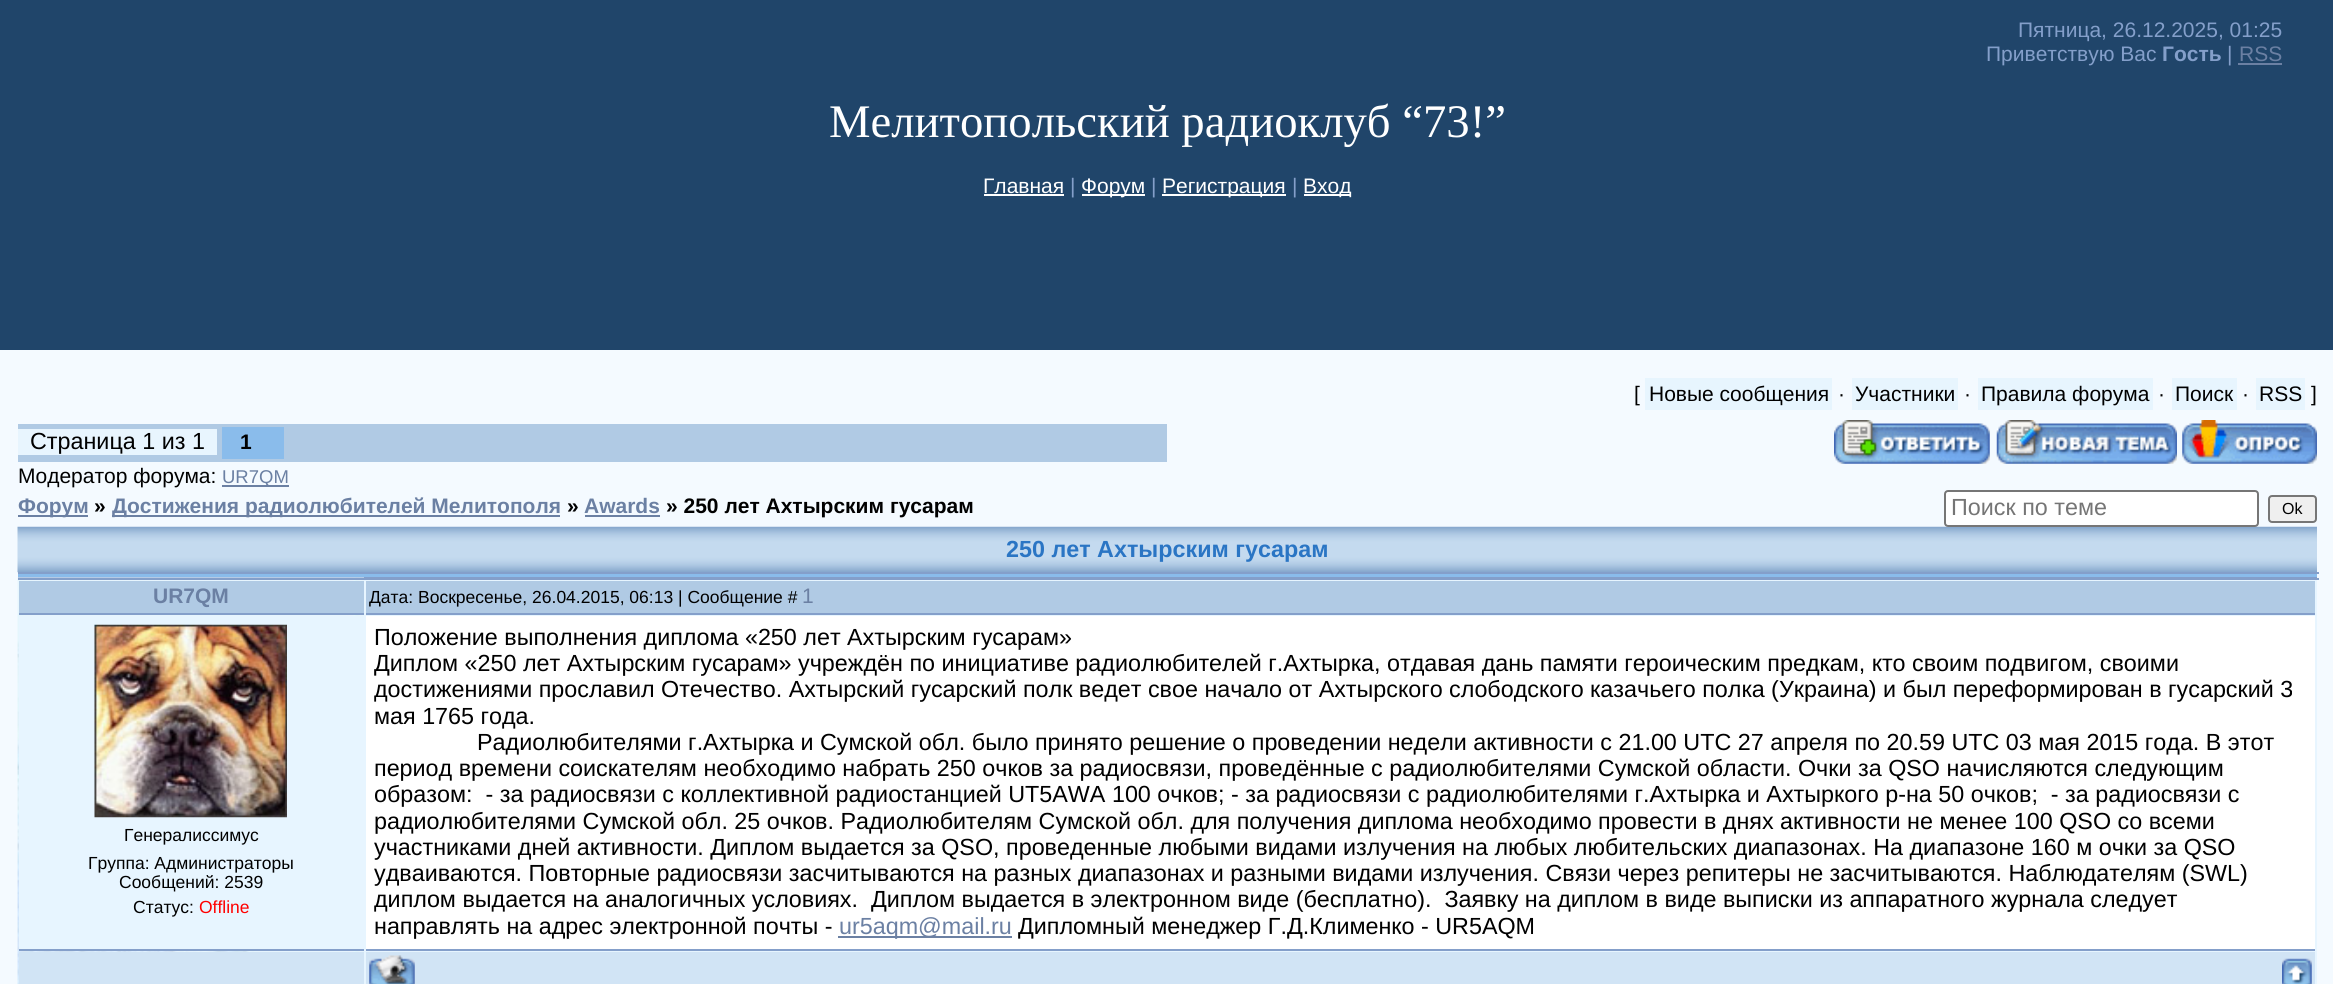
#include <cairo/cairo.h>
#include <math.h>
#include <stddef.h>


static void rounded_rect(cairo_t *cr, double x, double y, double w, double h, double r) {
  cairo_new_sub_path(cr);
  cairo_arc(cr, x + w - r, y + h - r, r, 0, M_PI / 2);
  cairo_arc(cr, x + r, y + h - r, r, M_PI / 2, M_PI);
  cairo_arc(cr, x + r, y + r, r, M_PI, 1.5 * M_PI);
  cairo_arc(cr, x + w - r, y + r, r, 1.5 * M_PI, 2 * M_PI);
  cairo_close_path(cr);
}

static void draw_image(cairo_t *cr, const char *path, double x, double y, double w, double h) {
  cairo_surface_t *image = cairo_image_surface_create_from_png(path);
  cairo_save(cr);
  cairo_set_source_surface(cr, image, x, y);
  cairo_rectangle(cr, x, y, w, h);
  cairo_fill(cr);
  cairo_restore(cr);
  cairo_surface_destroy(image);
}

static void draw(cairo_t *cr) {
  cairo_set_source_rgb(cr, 244 / 255.0, 250 / 255.0, 1);
  cairo_paint(cr);
  cairo_set_source_rgb(cr, 32 / 255.0, 69 / 255.0, 106 / 255.0);
  cairo_rectangle(cr, 0, 0, 2333, 350);
  cairo_fill(cr);
  cairo_set_source_rgb(cr, 107 / 255.0, 128 / 255.0, 163 / 255.0);
  cairo_rectangle(cr, 2238, 63, 44, 2);
  cairo_fill(cr);
  cairo_set_source_rgb(cr, 1, 1, 1);
  cairo_rectangle(cr, 984, 194, 80, 2);
  cairo_fill(cr);
  cairo_rectangle(cr, 1082, 194, 63, 2);
  cairo_fill(cr);
  cairo_rectangle(cr, 1162, 194, 124, 2);
  cairo_fill(cr);
  cairo_rectangle(cr, 1304, 194, 47, 2);
  cairo_fill(cr);
  cairo_set_source_rgb(cr, 231 / 255.0, 245 / 255.0, 254 / 255.0);
  cairo_rectangle(cr, 1645, 378, 187, 32);
  cairo_fill(cr);
  cairo_rectangle(cr, 1852, 378, 106, 32);
  cairo_fill(cr);
  cairo_rectangle(cr, 1978, 378, 175, 32);
  cairo_fill(cr);
  cairo_rectangle(cr, 2172, 378, 65, 32);
  cairo_fill(cr);
  cairo_rectangle(cr, 2256, 378, 49, 32);
  cairo_fill(cr);
  cairo_set_source_rgb(cr, 176 / 255.0, 202 / 255.0, 228 / 255.0);
  cairo_rectangle(cr, 18, 424, 1149, 38);
  cairo_fill(cr);
  cairo_set_source_rgb(cr, 232 / 255.0, 245 / 255.0, 254 / 255.0);
  cairo_rectangle(cr, 18, 429, 199, 26);
  cairo_fill(cr);
  cairo_set_source_rgb(cr, 138 / 255.0, 188 / 255.0, 235 / 255.0);
  cairo_rectangle(cr, 222, 427, 62, 32);
  cairo_fill(cr);
  draw_image(cr, "images/1.png", 1834, 420, 156, 44);
  draw_image(cr, "images/2.png", 1996, 420, 181, 44);
  draw_image(cr, "images/3.png", 2182, 420, 135, 44);
  cairo_set_source_rgb(cr, 107 / 255.0, 128 / 255.0, 163 / 255.0);
  cairo_rectangle(cr, 222, 485, 67, 2);
  cairo_fill(cr);
  cairo_rectangle(cr, 18, 515, 70, 2);
  cairo_fill(cr);
  cairo_rectangle(cr, 112, 515, 448, 2);
  cairo_fill(cr);
  cairo_rectangle(cr, 585, 515, 75, 2);
  cairo_fill(cr);
  draw_image(cr, "images/4.png", 17, 526, 2300, 47);
  cairo_set_source_rgb(cr, 1, 1, 1);
  rounded_rect(cr, 1945, 491, 313, 35, 3);
  cairo_fill_preserve(cr);
  cairo_set_source_rgb(cr, 118 / 255.0, 118 / 255.0, 118 / 255.0);
  cairo_stroke(cr);
  cairo_set_source_rgb(cr, 239 / 255.0, 239 / 255.0, 239 / 255.0);
  rounded_rect(cr, 2269, 496, 47, 26, 3);
  cairo_fill_preserve(cr);
  cairo_set_source_rgb(cr, 118 / 255.0, 118 / 255.0, 118 / 255.0);
  cairo_stroke(cr);
  cairo_set_source_rgb(cr, 132 / 255.0, 159 / 255.0, 202 / 255.0);
  cairo_rectangle(cr, 18, 577, 2299, 1);
  cairo_fill(cr);
  cairo_rectangle(cr, 18, 572, 2301, 2);
  cairo_fill(cr);
  cairo_set_source_rgb(cr, 138 / 255.0, 188 / 255.0, 235 / 255.0);
  cairo_rectangle(cr, 18, 574, 2299, 3);
  cairo_fill(cr);
  draw_image(cr, "images/5.png", 17, 577, 347, 407);
  cairo_set_source_rgb(cr, 132 / 255.0, 159 / 255.0, 202 / 255.0);
  cairo_rectangle(cr, 18, 578, 2301, 2);
  cairo_fill(cr);
  cairo_set_source_rgb(cr, 231 / 255.0, 245 / 255.0, 1);
  cairo_rectangle(cr, 364, 580, 1953, 404);
  cairo_fill(cr);
  cairo_set_source_rgb(cr, 176 / 255.0, 202 / 255.0, 228 / 255.0);
  cairo_rectangle(cr, 19, 581, 345, 32);
  cairo_fill(cr);
  cairo_set_source_rgb(cr, 132 / 255.0, 159 / 255.0, 202 / 255.0);
  cairo_rectangle(cr, 19, 613, 345, 2);
  cairo_fill(cr);
  cairo_set_source_rgb(cr, 176 / 255.0, 202 / 255.0, 228 / 255.0);
  cairo_rectangle(cr, 366, 581, 1949, 32);
  cairo_fill(cr);
  cairo_set_source_rgb(cr, 132 / 255.0, 159 / 255.0, 202 / 255.0);
  cairo_rectangle(cr, 366, 613, 1949, 2);
  cairo_fill(cr);
  cairo_set_source_rgb(cr, 231 / 255.0, 245 / 255.0, 1);
  cairo_rectangle(cr, 19, 616, 345, 333);
  cairo_fill(cr);
  cairo_set_source_rgb(cr, 132 / 255.0, 159 / 255.0, 202 / 255.0);
  cairo_rectangle(cr, 19, 949, 345, 2);
  cairo_fill(cr);
  draw_image(cr, "images/6.png", 94, 624, 193, 194);
  cairo_set_source_rgb(cr, 1, 1, 1);
  cairo_rectangle(cr, 366, 616, 1949, 333);
  cairo_fill(cr);
  cairo_set_source_rgb(cr, 132 / 255.0, 159 / 255.0, 202 / 255.0);
  cairo_rectangle(cr, 366, 949, 1949, 2);
  cairo_fill(cr);
  cairo_set_source_rgb(cr, 107 / 255.0, 128 / 255.0, 163 / 255.0);
  cairo_rectangle(cr, 838, 936, 174, 2);
  cairo_fill(cr);
  cairo_set_source_rgb(cr, 209 / 255.0, 228 / 255.0, 245 / 255.0);
  cairo_rectangle(cr, 19, 952, 345, 32);
  cairo_fill(cr);
  cairo_rectangle(cr, 366, 952, 1949, 32);
  cairo_fill(cr);
  draw_image(cr, "images/7.png", 369, 955, 46, 29);
  draw_image(cr, "images/8.png", 2282, 958, 30, 26);
  cairo_select_font_face(cr, "Liberation Sans", CAIRO_FONT_SLANT_NORMAL, CAIRO_FONT_WEIGHT_NORMAL);
  cairo_set_font_size(cr, 21);
  cairo_set_source_rgb(cr, 132 / 255.0, 159 / 255.0, 202 / 255.0);
  cairo_move_to(cr, 2018, 37);
  cairo_show_text(cr, "Пятница, 26.12.2025, 01:25");
  cairo_move_to(cr, 1986, 61);
  cairo_show_text(cr, "Приветствую Вас");
  cairo_select_font_face(cr, "Liberation Sans", CAIRO_FONT_SLANT_NORMAL, CAIRO_FONT_WEIGHT_BOLD);
  cairo_move_to(cr, 2162, 61);
  cairo_show_text(cr, "Гость");
  cairo_select_font_face(cr, "Liberation Sans", CAIRO_FONT_SLANT_NORMAL, CAIRO_FONT_WEIGHT_NORMAL);
  cairo_move_to(cr, 2227, 61);
  cairo_show_text(cr, "|");
  cairo_set_source_rgb(cr, 107 / 255.0, 128 / 255.0, 163 / 255.0);
  cairo_move_to(cr, 2239, 61);
  cairo_show_text(cr, "RSS");
  cairo_select_font_face(cr, "Liberation Serif", CAIRO_FONT_SLANT_NORMAL, CAIRO_FONT_WEIGHT_NORMAL);
  cairo_set_font_size(cr, 46.7);
  cairo_set_source_rgb(cr, 1, 1, 1);
  cairo_move_to(cr, 829, 137);
  cairo_show_text(cr, "Мелитопольский радиоклуб “73!”");
  cairo_select_font_face(cr, "Liberation Sans", CAIRO_FONT_SLANT_NORMAL, CAIRO_FONT_WEIGHT_NORMAL);
  cairo_set_font_size(cr, 21);
  cairo_move_to(cr, 983, 193);
  cairo_show_text(cr, "Главная");
  cairo_set_source_rgb(cr, 132 / 255.0, 159 / 255.0, 202 / 255.0);
  cairo_move_to(cr, 1070, 193);
  cairo_show_text(cr, "|");
  cairo_set_source_rgb(cr, 1, 1, 1);
  cairo_move_to(cr, 1081, 193);
  cairo_show_text(cr, "Форум");
  cairo_set_source_rgb(cr, 132 / 255.0, 159 / 255.0, 202 / 255.0);
  cairo_move_to(cr, 1151, 193);
  cairo_show_text(cr, "|");
  cairo_set_source_rgb(cr, 1, 1, 1);
  cairo_move_to(cr, 1162, 193);
  cairo_show_text(cr, "Регистрация");
  cairo_set_source_rgb(cr, 132 / 255.0, 159 / 255.0, 202 / 255.0);
  cairo_move_to(cr, 1292, 193);
  cairo_show_text(cr, "|");
  cairo_set_source_rgb(cr, 1, 1, 1);
  cairo_move_to(cr, 1303, 193);
  cairo_show_text(cr, "Вход");
  cairo_set_source_rgb(cr, 0, 0, 0);
  cairo_move_to(cr, 1634, 401);
  cairo_show_text(cr, "[");
  cairo_move_to(cr, 1649, 401);
  cairo_show_text(cr, "Новые сообщения");
  cairo_move_to(cr, 1838, 401);
  cairo_show_text(cr, "·");
  cairo_move_to(cr, 1855, 401);
  cairo_show_text(cr, "Участники");
  cairo_move_to(cr, 1964, 401);
  cairo_show_text(cr, "·");
  cairo_move_to(cr, 1981, 401);
  cairo_show_text(cr, "Правила форума");
  cairo_move_to(cr, 2158, 401);
  cairo_show_text(cr, "·");
  cairo_move_to(cr, 2175, 401);
  cairo_show_text(cr, "Поиск");
  cairo_move_to(cr, 2242, 401);
  cairo_show_text(cr, "·");
  cairo_move_to(cr, 2259, 401);
  cairo_show_text(cr, "RSS");
  cairo_move_to(cr, 2311, 401);
  cairo_show_text(cr, "]");
  cairo_set_font_size(cr, 23.33);
  cairo_move_to(cr, 30, 449);
  cairo_show_text(cr, "Страница 1 из 1");
  cairo_select_font_face(cr, "Liberation Sans", CAIRO_FONT_SLANT_NORMAL, CAIRO_FONT_WEIGHT_BOLD);
  cairo_set_font_size(cr, 21);
  cairo_move_to(cr, 240, 449);
  cairo_show_text(cr, "1");
  cairo_select_font_face(cr, "Liberation Sans", CAIRO_FONT_SLANT_NORMAL, CAIRO_FONT_WEIGHT_NORMAL);
  cairo_move_to(cr, 18, 483);
  cairo_show_text(cr, "Модератор форума:");
  cairo_set_font_size(cr, 18.5);
  cairo_set_source_rgb(cr, 107 / 255.0, 128 / 255.0, 163 / 255.0);
  cairo_move_to(cr, 222, 483);
  cairo_show_text(cr, "UR7QM");
  cairo_select_font_face(cr, "Liberation Sans", CAIRO_FONT_SLANT_NORMAL, CAIRO_FONT_WEIGHT_BOLD);
  cairo_set_font_size(cr, 21);
  cairo_move_to(cr, 18, 513);
  cairo_show_text(cr, "Форум");
  cairo_set_source_rgb(cr, 0, 0, 0);
  cairo_move_to(cr, 94, 513);
  cairo_show_text(cr, "»");
  cairo_set_source_rgb(cr, 107 / 255.0, 128 / 255.0, 163 / 255.0);
  cairo_move_to(cr, 112, 513);
  cairo_show_text(cr, "Достижения радиолюбителей Мелитополя");
  cairo_set_source_rgb(cr, 0, 0, 0);
  cairo_move_to(cr, 567, 513);
  cairo_show_text(cr, "»");
  cairo_set_source_rgb(cr, 107 / 255.0, 128 / 255.0, 163 / 255.0);
  cairo_move_to(cr, 584, 513);
  cairo_show_text(cr, "Awards");
  cairo_set_source_rgb(cr, 0, 0, 0);
  cairo_move_to(cr, 666, 513);
  cairo_show_text(cr, "» 250 лет Ахтырским гусарам");
  cairo_select_font_face(cr, "Liberation Sans", CAIRO_FONT_SLANT_NORMAL, CAIRO_FONT_WEIGHT_NORMAL);
  cairo_set_font_size(cr, 23.33);
  cairo_set_source_rgb(cr, 117 / 255.0, 117 / 255.0, 117 / 255.0);
  cairo_move_to(cr, 1951, 515);
  cairo_show_text(cr, "Поиск по теме");
  cairo_set_font_size(cr, 16);
  cairo_set_source_rgb(cr, 0, 0, 0);
  cairo_move_to(cr, 2282, 514);
  cairo_show_text(cr, "Ok");
  cairo_select_font_face(cr, "Liberation Sans", CAIRO_FONT_SLANT_NORMAL, CAIRO_FONT_WEIGHT_BOLD);
  cairo_set_font_size(cr, 23.33);
  cairo_set_source_rgb(cr, 42 / 255.0, 117 / 255.0, 196 / 255.0);
  cairo_move_to(cr, 1006, 557);
  cairo_show_text(cr, "250 лет Ахтырским гусарам");
  cairo_set_font_size(cr, 21);
  cairo_set_source_rgb(cr, 107 / 255.0, 128 / 255.0, 163 / 255.0);
  cairo_move_to(cr, 153, 603);
  cairo_show_text(cr, "UR7QM");
  cairo_select_font_face(cr, "Liberation Sans", CAIRO_FONT_SLANT_NORMAL, CAIRO_FONT_WEIGHT_NORMAL);
  cairo_set_font_size(cr, 17.5);
  cairo_set_source_rgb(cr, 0, 0, 0);
  cairo_move_to(cr, 369, 603);
  cairo_show_text(cr, "Дата: Воскресенье, 26.04.2015, 06:13 | Сообщение #");
  cairo_set_font_size(cr, 21);
  cairo_set_source_rgb(cr, 107 / 255.0, 128 / 255.0, 163 / 255.0);
  cairo_move_to(cr, 802, 603);
  cairo_show_text(cr, "1");
  cairo_set_font_size(cr, 17.5);
  cairo_set_source_rgb(cr, 0, 0, 0);
  cairo_move_to(cr, 124, 841);
  cairo_show_text(cr, "Генералиссимус");
  cairo_move_to(cr, 88, 869);
  cairo_show_text(cr, "Группа: Администраторы");
  cairo_move_to(cr, 119, 888);
  cairo_show_text(cr, "Сообщений: 2539");
  cairo_move_to(cr, 133, 913);
  cairo_show_text(cr, "Статус:");
  cairo_set_source_rgb(cr, 1, 0, 0);
  cairo_move_to(cr, 199, 913);
  cairo_show_text(cr, "Offline");
  cairo_set_font_size(cr, 23.33);
  cairo_set_source_rgb(cr, 0, 0, 0);
  cairo_move_to(cr, 374, 645);
  cairo_show_text(cr, "Положение выполнения диплома «250 лет Ахтырским гусарам»");
  cairo_move_to(cr, 374, 671);
  cairo_show_text(cr, "Диплом «250 лет Ахтырским гусарам» учреждён по инициативе радиолюбителей г.Ахтырка, отдавая дань памяти героическим предкам, кто своим подвигом, своими");
  cairo_move_to(cr, 374, 697);
  cairo_show_text(cr, "достижениями прославил Отечество. Ахтырский гусарский полк ведет свое начало от Ахтырского слободского казачьего полка (Украина) и был переформирован в гусарский 3");
  cairo_move_to(cr, 374, 724);
  cairo_show_text(cr, "мая 1765 года.");
  cairo_move_to(cr, 477, 750);
  cairo_show_text(cr, "Радиолюбителями г.Ахтырка и Сумской обл. было принято решение о проведении недели активности с 21.00 UTC 27 апреля по 20.59 UTC 03 мая 2015 года. В этот");
  cairo_move_to(cr, 374, 776);
  cairo_show_text(cr, "период времени соискателям необходимо набрать 250 очков за радиосвязи, проведённые с радиолюбителями Сумской области. Очки за QSO начисляются следующим");
  cairo_move_to(cr, 374, 802);
  cairo_show_text(cr, "образом:  - за радиосвязи с коллективной радиостанцией UT5AWA 100 очков; - за радиосвязи с радиолюбителями г.Ахтырка и Ахтыркого р-на 50 очков;  - за радиосвязи с");
  cairo_move_to(cr, 374, 829);
  cairo_show_text(cr, "радиолюбителями Сумской обл. 25 очков. Радиолюбителям Сумской обл. для получения диплома необходимо провести в днях активности не менее 100 QSO со всеми");
  cairo_move_to(cr, 374, 855);
  cairo_show_text(cr, "участниками дней активности. Диплом выдается за QSO, проведенные любыми видами излучения на любых любительских диапазонах. На диапазоне 160 м очки за QSO");
  cairo_move_to(cr, 374, 881);
  cairo_show_text(cr, "удваиваются. Повторные радиосвязи засчитываются на разных диапазонах и разными видами излучения. Связи через репитеры не засчитываются. Наблюдателям (SWL)");
  cairo_move_to(cr, 374, 907);
  cairo_show_text(cr, "диплом выдается на аналогичных условиях.  Диплом выдается в электронном виде (бесплатно).  Заявку на диплом в виде выписки из аппаратного журнала следует");
  cairo_move_to(cr, 374, 934);
  cairo_show_text(cr, "направлять на адрес электронной почты -");
  cairo_set_source_rgb(cr, 107 / 255.0, 128 / 255.0, 163 / 255.0);
  cairo_move_to(cr, 839, 934);
  cairo_show_text(cr, "ur5aqm@mail.ru");
  cairo_set_source_rgb(cr, 0, 0, 0);
  cairo_move_to(cr, 1018, 934);
  cairo_show_text(cr, "Дипломный менеджер Г.Д.Клименко - UR5AQM");
}

int main(void) {
  cairo_surface_t *surface = cairo_image_surface_create(CAIRO_FORMAT_RGB24, 2333, 984);
  cairo_t *cr = cairo_create(surface);
  cairo_font_options_t *options = cairo_font_options_create();
  cairo_font_options_set_hint_metrics(options, CAIRO_HINT_METRICS_OFF);
  cairo_font_options_set_hint_style(options, CAIRO_HINT_STYLE_NONE);
  cairo_set_font_options(cr, options);
  cairo_set_miter_limit(cr, 4);
  draw(cr);
  cairo_surface_write_to_png(surface, "out.png");
  cairo_font_options_destroy(options);
  cairo_destroy(cr);
  cairo_surface_destroy(surface);
  return 0;
}
